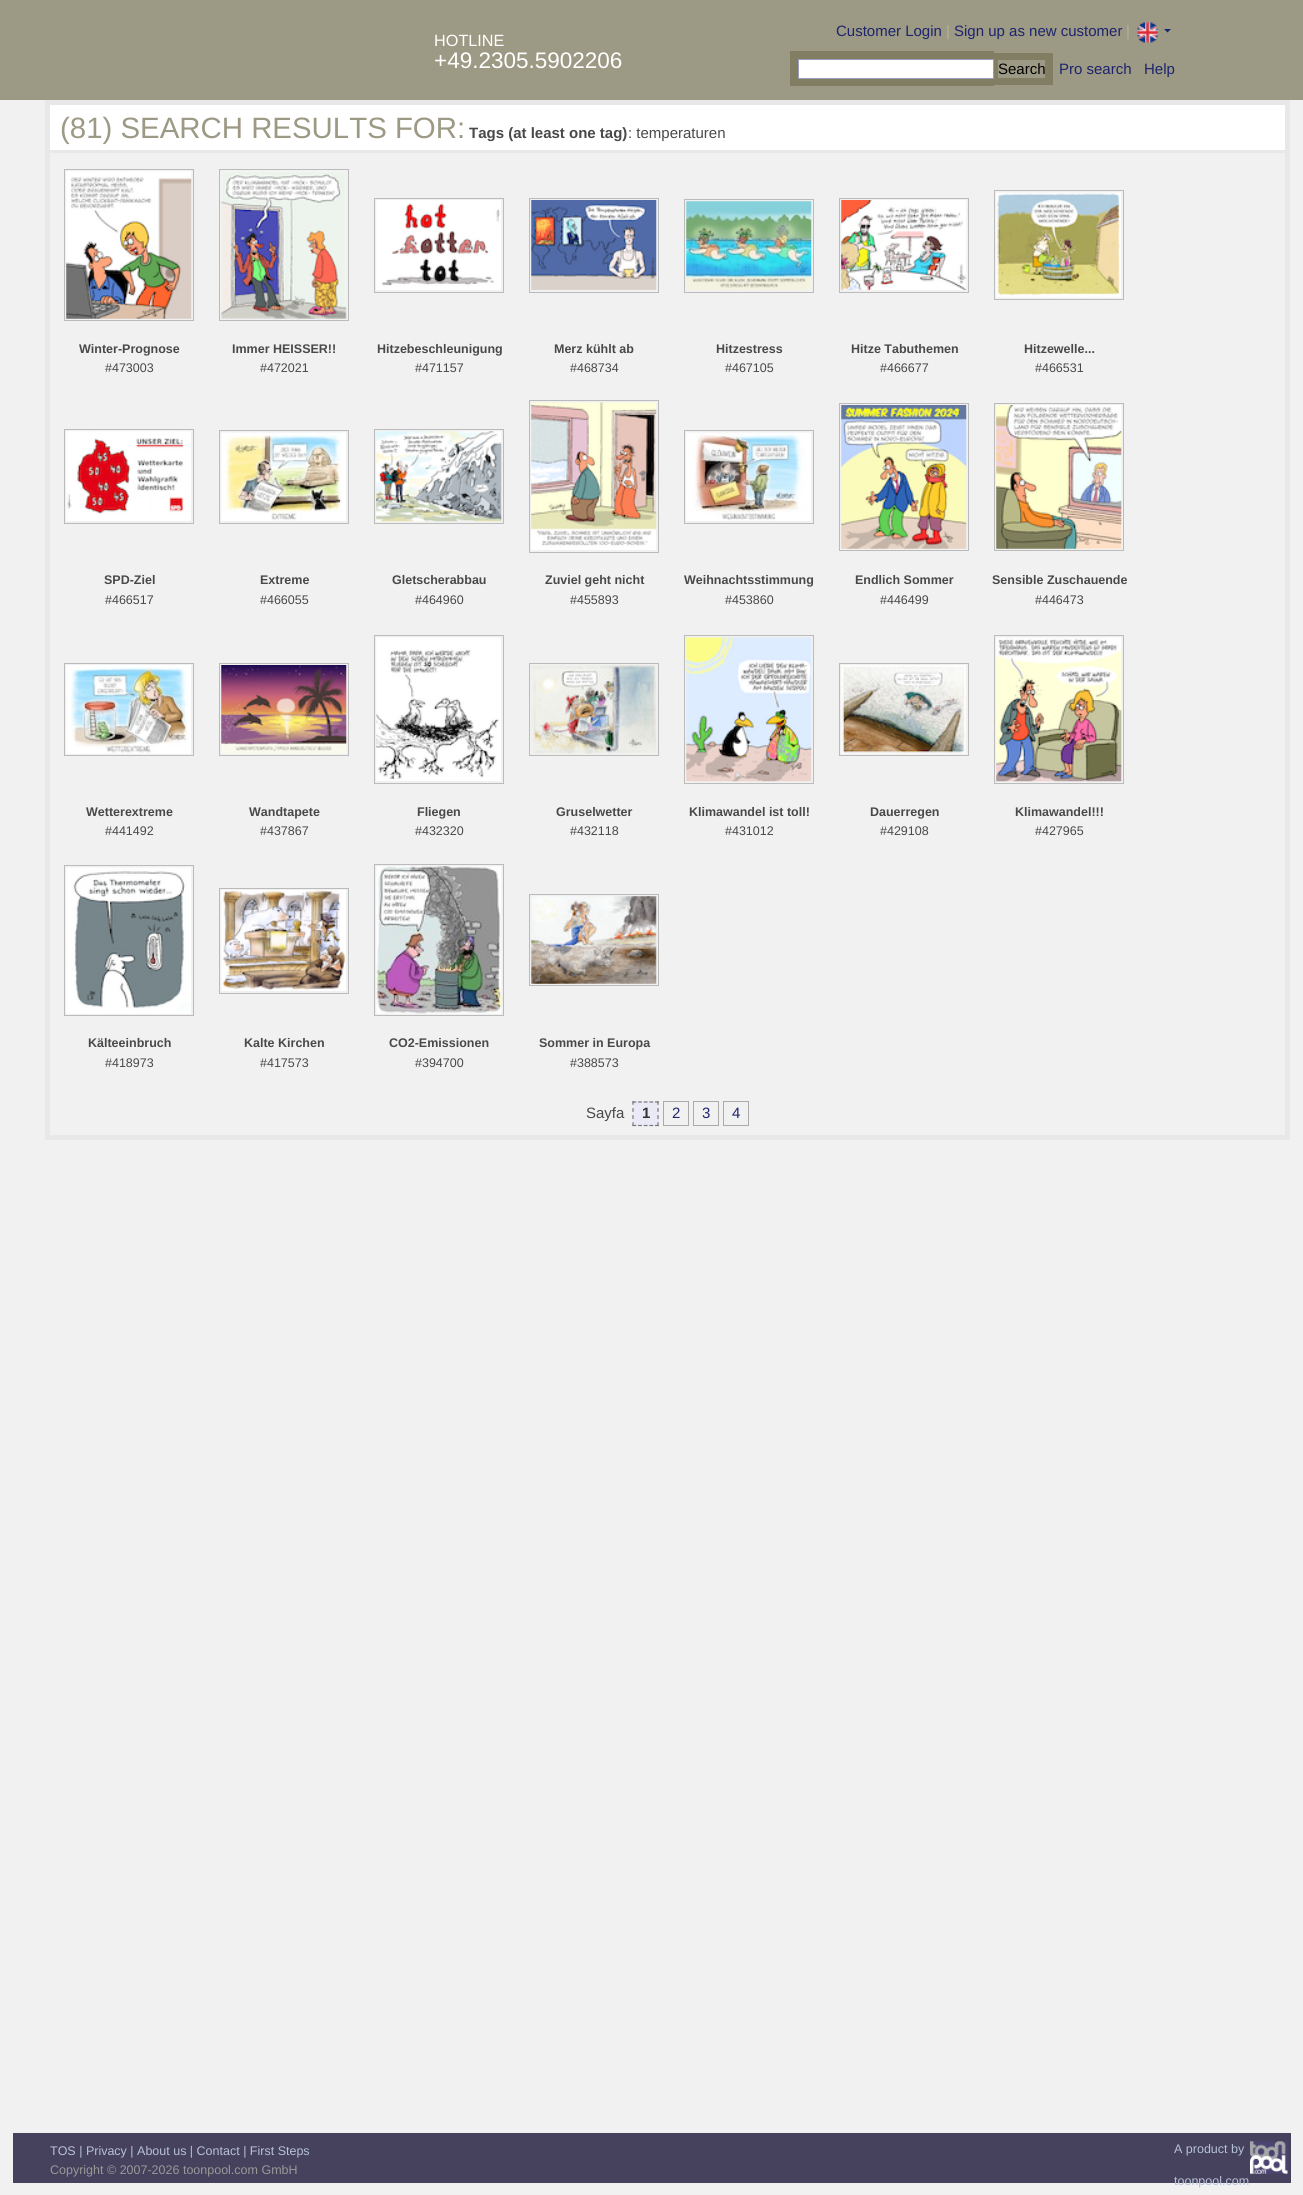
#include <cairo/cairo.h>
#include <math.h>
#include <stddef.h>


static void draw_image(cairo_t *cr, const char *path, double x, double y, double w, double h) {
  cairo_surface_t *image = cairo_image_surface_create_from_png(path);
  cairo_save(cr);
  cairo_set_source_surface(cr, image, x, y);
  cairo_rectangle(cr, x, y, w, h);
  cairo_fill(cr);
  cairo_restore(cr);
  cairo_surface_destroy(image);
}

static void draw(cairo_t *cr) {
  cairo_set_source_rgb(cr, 241 / 255.0, 241 / 255.0, 241 / 255.0);
  cairo_paint(cr);
  cairo_set_source_rgb(cr, 156 / 255.0, 153 / 255.0, 132 / 255.0);
  cairo_rectangle(cr, 0, 0, 1303, 100);
  cairo_fill(cr);
  draw_image(cr, "images/1.png", 1137, 22, 21, 21);
  cairo_set_source_rgb(cr, 29 / 255.0, 36 / 255.0, 108 / 255.0);
  cairo_new_path(cr);
  cairo_move_to(cr, 1164, 29);
  cairo_line_to(cr, 1171, 29);
  cairo_line_to(cr, 1167.5, 32.5);
  cairo_close_path(cr);
  cairo_fill(cr);
  cairo_set_source_rgb(cr, 130 / 255.0, 126 / 255.0, 99 / 255.0);
  cairo_rectangle(cr, 790, 51, 204, 35);
  cairo_fill(cr);
  cairo_rectangle(cr, 994, 53, 59, 32);
  cairo_fill(cr);
  cairo_set_source_rgb(cr, 1, 1, 1);
  cairo_rectangle(cr, 798.5, 59.5, 195, 19);
  cairo_fill_preserve(cr);
  cairo_set_source_rgb(cr, 153 / 255.0, 156 / 255.0, 187 / 255.0);
  cairo_set_line_width(cr, 1);
  cairo_stroke(cr);
  cairo_set_source_rgb(cr, 156 / 255.0, 153 / 255.0, 132 / 255.0);
  cairo_rectangle(cr, 998, 60, 47, 18);
  cairo_fill(cr);
  cairo_rectangle(cr, 47.5, 102.5, 1240, 1035);
  cairo_set_source_rgb(cr, 232 / 255.0, 232 / 255.0, 232 / 255.0);
  cairo_set_line_width(cr, 5);
  cairo_stroke(cr);
  cairo_set_source_rgb(cr, 1, 1, 1);
  cairo_rectangle(cr, 50, 105, 1235, 45);
  cairo_fill(cr);
  cairo_set_source_rgb(cr, 232 / 255.0, 232 / 255.0, 232 / 255.0);
  cairo_rectangle(cr, 50, 150, 1235, 3);
  cairo_fill(cr);
  cairo_rectangle(cr, 64.5, 169.5, 129, 151);
  cairo_set_source_rgb(cr, 187 / 255.0, 187 / 255.0, 187 / 255.0);
  cairo_set_line_width(cr, 1);
  cairo_stroke(cr);
  draw_image(cr, "images/2.png", 66, 171, 126, 148);
  cairo_rectangle(cr, 219.5, 169.5, 129, 151);
  cairo_stroke(cr);
  draw_image(cr, "images/3.png", 221, 171, 126, 148);
  cairo_rectangle(cr, 374.5, 198.5, 129, 94);
  cairo_stroke(cr);
  draw_image(cr, "images/4.png", 376, 200, 125, 90);
  cairo_rectangle(cr, 529.5, 198.5, 129, 94);
  cairo_stroke(cr);
  draw_image(cr, "images/5.png", 531, 200, 126, 90);
  cairo_rectangle(cr, 684.5, 199.5, 129, 93);
  cairo_stroke(cr);
  draw_image(cr, "images/6.png", 686, 201, 126, 89);
  cairo_rectangle(cr, 839.5, 198.5, 129, 94);
  cairo_stroke(cr);
  draw_image(cr, "images/7.png", 841, 200, 126, 90);
  cairo_rectangle(cr, 994.5, 190.5, 129, 109);
  cairo_stroke(cr);
  draw_image(cr, "images/8.png", 996, 192, 125, 106);
  cairo_rectangle(cr, 64.5, 429.5, 129, 94);
  cairo_stroke(cr);
  draw_image(cr, "images/9.png", 66, 431, 125, 90);
  cairo_rectangle(cr, 219.5, 430.5, 129, 93);
  cairo_stroke(cr);
  draw_image(cr, "images/10.png", 221, 432, 125, 89);
  cairo_rectangle(cr, 374.5, 429.5, 129, 94);
  cairo_stroke(cr);
  draw_image(cr, "images/11.png", 376, 431, 126, 91);
  cairo_rectangle(cr, 529.5, 400.5, 129, 152);
  cairo_stroke(cr);
  draw_image(cr, "images/12.png", 531, 402, 126, 148);
  cairo_rectangle(cr, 684.5, 430.5, 129, 93);
  cairo_stroke(cr);
  draw_image(cr, "images/13.png", 686, 432, 125, 89);
  cairo_rectangle(cr, 839.5, 403.5, 129, 147);
  cairo_stroke(cr);
  draw_image(cr, "images/14.png", 841, 405, 126, 144);
  cairo_rectangle(cr, 994.5, 403.5, 129, 147);
  cairo_stroke(cr);
  draw_image(cr, "images/15.png", 996, 405, 126, 144);
  cairo_rectangle(cr, 64.5, 663.5, 129, 92);
  cairo_stroke(cr);
  draw_image(cr, "images/16.png", 66, 665, 125, 89);
  cairo_rectangle(cr, 219.5, 663.5, 129, 92);
  cairo_stroke(cr);
  draw_image(cr, "images/17.png", 221, 665, 126, 89);
  cairo_rectangle(cr, 374.5, 635.5, 129, 148);
  cairo_stroke(cr);
  draw_image(cr, "images/18.png", 376, 637, 125, 144);
  cairo_rectangle(cr, 529.5, 663.5, 129, 92);
  cairo_stroke(cr);
  draw_image(cr, "images/19.png", 531, 665, 126, 89);
  cairo_rectangle(cr, 684.5, 635.5, 129, 148);
  cairo_stroke(cr);
  draw_image(cr, "images/20.png", 686, 637, 126, 145);
  cairo_rectangle(cr, 839.5, 663.5, 129, 92);
  cairo_stroke(cr);
  draw_image(cr, "images/21.png", 841, 665, 125, 89);
  cairo_rectangle(cr, 994.5, 635.5, 129, 148);
  cairo_stroke(cr);
  draw_image(cr, "images/22.png", 996, 637, 126, 145);
  cairo_rectangle(cr, 64.5, 865.5, 129, 150);
  cairo_stroke(cr);
  draw_image(cr, "images/23.png", 66, 867, 125, 147);
  cairo_rectangle(cr, 219.5, 888.5, 129, 105);
  cairo_stroke(cr);
  draw_image(cr, "images/24.png", 221, 890, 125, 101);
  cairo_rectangle(cr, 374.5, 864.5, 129, 151);
  cairo_stroke(cr);
  draw_image(cr, "images/25.png", 376, 866, 126, 148);
  cairo_rectangle(cr, 529.5, 894.5, 129, 91);
  cairo_stroke(cr);
  draw_image(cr, "images/26.png", 531, 896, 126, 88);
  cairo_set_source_rgb(cr, 233 / 255.0, 234 / 255.0, 245 / 255.0);
  cairo_rectangle(cr, 633, 1101, 26, 25);
  cairo_fill(cr);
  cairo_new_path(cr);
  cairo_move_to(cr, 632.5, 1102);
  cairo_line_to(cr, 659, 1102);
  cairo_set_source_rgb(cr, 119 / 255.0, 119 / 255.0, 119 / 255.0);
  cairo_set_line_width(cr, 1.2);
  cairo_set_dash(cr, (double[]){3.75, 1.88}, 2, 0);
  cairo_stroke(cr);
  cairo_new_path(cr);
  cairo_move_to(cr, 658, 1101);
  cairo_line_to(cr, 658, 1126);
  cairo_set_dash(cr, (double[]){3.75, 3.34}, 2, 0);
  cairo_stroke(cr);
  cairo_new_path(cr);
  cairo_move_to(cr, 632.5, 1125.5);
  cairo_line_to(cr, 659, 1125.5);
  cairo_set_dash(cr, (double[]){3.75, 1.88}, 2, 0);
  cairo_stroke(cr);
  cairo_new_path(cr);
  cairo_move_to(cr, 633, 1101);
  cairo_line_to(cr, 633, 1126);
  cairo_set_dash(cr, (double[]){3.75, 3.34}, 2, 0);
  cairo_stroke(cr);
  cairo_rectangle(cr, 663.5, 1101.5, 25, 24);
  cairo_set_source_rgb(cr, 170 / 255.0, 170 / 255.0, 170 / 255.0);
  cairo_set_line_width(cr, 1);
  cairo_set_dash(cr, NULL, 0, 0);
  cairo_stroke(cr);
  cairo_rectangle(cr, 693.5, 1101.5, 25, 24);
  cairo_stroke(cr);
  cairo_rectangle(cr, 723.5, 1101.5, 25, 24);
  cairo_stroke(cr);
  cairo_set_source_rgb(cr, 70 / 255.0, 65 / 255.0, 92 / 255.0);
  cairo_rectangle(cr, 13, 2133, 1278, 50);
  cairo_fill(cr);
  draw_image(cr, "images/27.png", 1250, 2141, 38, 33);
  cairo_select_font_face(cr, "Liberation Sans", CAIRO_FONT_SLANT_NORMAL, CAIRO_FONT_WEIGHT_NORMAL);
  cairo_set_font_size(cr, 15);
  cairo_set_source_rgb(cr, 29 / 255.0, 36 / 255.0, 108 / 255.0);
  cairo_move_to(cr, 836, 36);
  cairo_show_text(cr, "Customer Login");
  cairo_set_source_rgb(cr, 181 / 255.0, 178 / 255.0, 155 / 255.0);
  cairo_move_to(cr, 946, 36);
  cairo_show_text(cr, "|");
  cairo_set_source_rgb(cr, 29 / 255.0, 36 / 255.0, 108 / 255.0);
  cairo_move_to(cr, 954, 36);
  cairo_show_text(cr, "Sign up as new customer");
  cairo_set_source_rgb(cr, 181 / 255.0, 178 / 255.0, 155 / 255.0);
  cairo_move_to(cr, 1126, 36);
  cairo_show_text(cr, "|");
  cairo_set_font_size(cr, 16.25);
  cairo_set_source_rgb(cr, 1, 1, 1);
  cairo_move_to(cr, 434, 46);
  cairo_show_text(cr, "HOTLINE");
  cairo_set_font_size(cr, 22.5);
  cairo_move_to(cr, 434, 68);
  cairo_show_text(cr, "+49.2305.5902206");
  cairo_set_font_size(cr, 15);
  cairo_set_source_rgb(cr, 0, 0, 0);
  cairo_move_to(cr, 998, 74);
  cairo_show_text(cr, "Search");
  cairo_set_source_rgb(cr, 29 / 255.0, 36 / 255.0, 108 / 255.0);
  cairo_move_to(cr, 1059, 74);
  cairo_show_text(cr, "Pro search");
  cairo_move_to(cr, 1144, 74);
  cairo_show_text(cr, "Help");
  cairo_set_font_size(cr, 29.4);
  cairo_set_source_rgb(cr, 156 / 255.0, 153 / 255.0, 132 / 255.0);
  cairo_move_to(cr, 60, 138);
  cairo_show_text(cr, "(81) SEARCH RESULTS FOR:");
  cairo_select_font_face(cr, "Liberation Sans", CAIRO_FONT_SLANT_NORMAL, CAIRO_FONT_WEIGHT_BOLD);
  cairo_set_font_size(cr, 15);
  cairo_set_source_rgb(cr, 73 / 255.0, 73 / 255.0, 73 / 255.0);
  cairo_move_to(cr, 469, 138);
  cairo_show_text(cr, "Tags (at least one tag)");
  cairo_select_font_face(cr, "Liberation Sans", CAIRO_FONT_SLANT_NORMAL, CAIRO_FONT_WEIGHT_NORMAL);
  cairo_move_to(cr, 628, 138);
  cairo_show_text(cr, ": temperaturen");
  cairo_select_font_face(cr, "Liberation Sans", CAIRO_FONT_SLANT_NORMAL, CAIRO_FONT_WEIGHT_BOLD);
  cairo_set_font_size(cr, 12.5);
  cairo_move_to(cr, 79, 353);
  cairo_show_text(cr, "Winter-Prognose");
  cairo_select_font_face(cr, "Liberation Sans", CAIRO_FONT_SLANT_NORMAL, CAIRO_FONT_WEIGHT_NORMAL);
  cairo_move_to(cr, 105, 372);
  cairo_show_text(cr, "#473003");
  cairo_select_font_face(cr, "Liberation Sans", CAIRO_FONT_SLANT_NORMAL, CAIRO_FONT_WEIGHT_BOLD);
  cairo_move_to(cr, 232, 353);
  cairo_show_text(cr, "Immer HEISSER!!");
  cairo_select_font_face(cr, "Liberation Sans", CAIRO_FONT_SLANT_NORMAL, CAIRO_FONT_WEIGHT_NORMAL);
  cairo_move_to(cr, 260, 372);
  cairo_show_text(cr, "#472021");
  cairo_select_font_face(cr, "Liberation Sans", CAIRO_FONT_SLANT_NORMAL, CAIRO_FONT_WEIGHT_BOLD);
  cairo_move_to(cr, 377, 353);
  cairo_show_text(cr, "Hitzebeschleunigung");
  cairo_select_font_face(cr, "Liberation Sans", CAIRO_FONT_SLANT_NORMAL, CAIRO_FONT_WEIGHT_NORMAL);
  cairo_move_to(cr, 415, 372);
  cairo_show_text(cr, "#471157");
  cairo_select_font_face(cr, "Liberation Sans", CAIRO_FONT_SLANT_NORMAL, CAIRO_FONT_WEIGHT_BOLD);
  cairo_move_to(cr, 554, 353);
  cairo_show_text(cr, "Merz kühlt ab");
  cairo_select_font_face(cr, "Liberation Sans", CAIRO_FONT_SLANT_NORMAL, CAIRO_FONT_WEIGHT_NORMAL);
  cairo_move_to(cr, 570, 372);
  cairo_show_text(cr, "#468734");
  cairo_select_font_face(cr, "Liberation Sans", CAIRO_FONT_SLANT_NORMAL, CAIRO_FONT_WEIGHT_BOLD);
  cairo_move_to(cr, 716, 353);
  cairo_show_text(cr, "Hitzestress");
  cairo_select_font_face(cr, "Liberation Sans", CAIRO_FONT_SLANT_NORMAL, CAIRO_FONT_WEIGHT_NORMAL);
  cairo_move_to(cr, 725, 372);
  cairo_show_text(cr, "#467105");
  cairo_select_font_face(cr, "Liberation Sans", CAIRO_FONT_SLANT_NORMAL, CAIRO_FONT_WEIGHT_BOLD);
  cairo_move_to(cr, 851, 353);
  cairo_show_text(cr, "Hitze Tabuthemen");
  cairo_select_font_face(cr, "Liberation Sans", CAIRO_FONT_SLANT_NORMAL, CAIRO_FONT_WEIGHT_NORMAL);
  cairo_move_to(cr, 880, 372);
  cairo_show_text(cr, "#466677");
  cairo_select_font_face(cr, "Liberation Sans", CAIRO_FONT_SLANT_NORMAL, CAIRO_FONT_WEIGHT_BOLD);
  cairo_move_to(cr, 1024, 353);
  cairo_show_text(cr, "Hitzewelle...");
  cairo_select_font_face(cr, "Liberation Sans", CAIRO_FONT_SLANT_NORMAL, CAIRO_FONT_WEIGHT_NORMAL);
  cairo_move_to(cr, 1035, 372);
  cairo_show_text(cr, "#466531");
  cairo_select_font_face(cr, "Liberation Sans", CAIRO_FONT_SLANT_NORMAL, CAIRO_FONT_WEIGHT_BOLD);
  cairo_move_to(cr, 104, 584);
  cairo_show_text(cr, "SPD-Ziel");
  cairo_select_font_face(cr, "Liberation Sans", CAIRO_FONT_SLANT_NORMAL, CAIRO_FONT_WEIGHT_NORMAL);
  cairo_move_to(cr, 105, 604);
  cairo_show_text(cr, "#466517");
  cairo_select_font_face(cr, "Liberation Sans", CAIRO_FONT_SLANT_NORMAL, CAIRO_FONT_WEIGHT_BOLD);
  cairo_move_to(cr, 260, 584);
  cairo_show_text(cr, "Extreme");
  cairo_select_font_face(cr, "Liberation Sans", CAIRO_FONT_SLANT_NORMAL, CAIRO_FONT_WEIGHT_NORMAL);
  cairo_move_to(cr, 260, 604);
  cairo_show_text(cr, "#466055");
  cairo_select_font_face(cr, "Liberation Sans", CAIRO_FONT_SLANT_NORMAL, CAIRO_FONT_WEIGHT_BOLD);
  cairo_move_to(cr, 392, 584);
  cairo_show_text(cr, "Gletscherabbau");
  cairo_select_font_face(cr, "Liberation Sans", CAIRO_FONT_SLANT_NORMAL, CAIRO_FONT_WEIGHT_NORMAL);
  cairo_move_to(cr, 415, 604);
  cairo_show_text(cr, "#464960");
  cairo_select_font_face(cr, "Liberation Sans", CAIRO_FONT_SLANT_NORMAL, CAIRO_FONT_WEIGHT_BOLD);
  cairo_move_to(cr, 545, 584);
  cairo_show_text(cr, "Zuviel geht nicht");
  cairo_select_font_face(cr, "Liberation Sans", CAIRO_FONT_SLANT_NORMAL, CAIRO_FONT_WEIGHT_NORMAL);
  cairo_move_to(cr, 570, 604);
  cairo_show_text(cr, "#455893");
  cairo_select_font_face(cr, "Liberation Sans", CAIRO_FONT_SLANT_NORMAL, CAIRO_FONT_WEIGHT_BOLD);
  cairo_move_to(cr, 684, 584);
  cairo_show_text(cr, "Weihnachtsstimmung");
  cairo_select_font_face(cr, "Liberation Sans", CAIRO_FONT_SLANT_NORMAL, CAIRO_FONT_WEIGHT_NORMAL);
  cairo_move_to(cr, 725, 604);
  cairo_show_text(cr, "#453860");
  cairo_select_font_face(cr, "Liberation Sans", CAIRO_FONT_SLANT_NORMAL, CAIRO_FONT_WEIGHT_BOLD);
  cairo_move_to(cr, 855, 584);
  cairo_show_text(cr, "Endlich Sommer");
  cairo_select_font_face(cr, "Liberation Sans", CAIRO_FONT_SLANT_NORMAL, CAIRO_FONT_WEIGHT_NORMAL);
  cairo_move_to(cr, 880, 604);
  cairo_show_text(cr, "#446499");
  cairo_select_font_face(cr, "Liberation Sans", CAIRO_FONT_SLANT_NORMAL, CAIRO_FONT_WEIGHT_BOLD);
  cairo_move_to(cr, 992, 584);
  cairo_show_text(cr, "Sensible Zuschauende");
  cairo_select_font_face(cr, "Liberation Sans", CAIRO_FONT_SLANT_NORMAL, CAIRO_FONT_WEIGHT_NORMAL);
  cairo_move_to(cr, 1035, 604);
  cairo_show_text(cr, "#446473");
  cairo_select_font_face(cr, "Liberation Sans", CAIRO_FONT_SLANT_NORMAL, CAIRO_FONT_WEIGHT_BOLD);
  cairo_move_to(cr, 86, 816);
  cairo_show_text(cr, "Wetterextreme");
  cairo_select_font_face(cr, "Liberation Sans", CAIRO_FONT_SLANT_NORMAL, CAIRO_FONT_WEIGHT_NORMAL);
  cairo_move_to(cr, 105, 835);
  cairo_show_text(cr, "#441492");
  cairo_select_font_face(cr, "Liberation Sans", CAIRO_FONT_SLANT_NORMAL, CAIRO_FONT_WEIGHT_BOLD);
  cairo_move_to(cr, 249, 816);
  cairo_show_text(cr, "Wandtapete");
  cairo_select_font_face(cr, "Liberation Sans", CAIRO_FONT_SLANT_NORMAL, CAIRO_FONT_WEIGHT_NORMAL);
  cairo_move_to(cr, 260, 835);
  cairo_show_text(cr, "#437867");
  cairo_select_font_face(cr, "Liberation Sans", CAIRO_FONT_SLANT_NORMAL, CAIRO_FONT_WEIGHT_BOLD);
  cairo_move_to(cr, 417, 816);
  cairo_show_text(cr, "Fliegen");
  cairo_select_font_face(cr, "Liberation Sans", CAIRO_FONT_SLANT_NORMAL, CAIRO_FONT_WEIGHT_NORMAL);
  cairo_move_to(cr, 415, 835);
  cairo_show_text(cr, "#432320");
  cairo_select_font_face(cr, "Liberation Sans", CAIRO_FONT_SLANT_NORMAL, CAIRO_FONT_WEIGHT_BOLD);
  cairo_move_to(cr, 556, 816);
  cairo_show_text(cr, "Gruselwetter");
  cairo_select_font_face(cr, "Liberation Sans", CAIRO_FONT_SLANT_NORMAL, CAIRO_FONT_WEIGHT_NORMAL);
  cairo_move_to(cr, 570, 835);
  cairo_show_text(cr, "#432118");
  cairo_select_font_face(cr, "Liberation Sans", CAIRO_FONT_SLANT_NORMAL, CAIRO_FONT_WEIGHT_BOLD);
  cairo_move_to(cr, 689, 816);
  cairo_show_text(cr, "Klimawandel ist toll!");
  cairo_select_font_face(cr, "Liberation Sans", CAIRO_FONT_SLANT_NORMAL, CAIRO_FONT_WEIGHT_NORMAL);
  cairo_move_to(cr, 725, 835);
  cairo_show_text(cr, "#431012");
  cairo_select_font_face(cr, "Liberation Sans", CAIRO_FONT_SLANT_NORMAL, CAIRO_FONT_WEIGHT_BOLD);
  cairo_move_to(cr, 870, 816);
  cairo_show_text(cr, "Dauerregen");
  cairo_select_font_face(cr, "Liberation Sans", CAIRO_FONT_SLANT_NORMAL, CAIRO_FONT_WEIGHT_NORMAL);
  cairo_move_to(cr, 880, 835);
  cairo_show_text(cr, "#429108");
  cairo_select_font_face(cr, "Liberation Sans", CAIRO_FONT_SLANT_NORMAL, CAIRO_FONT_WEIGHT_BOLD);
  cairo_move_to(cr, 1015, 816);
  cairo_show_text(cr, "Klimawandel!!!");
  cairo_select_font_face(cr, "Liberation Sans", CAIRO_FONT_SLANT_NORMAL, CAIRO_FONT_WEIGHT_NORMAL);
  cairo_move_to(cr, 1035, 835);
  cairo_show_text(cr, "#427965");
  cairo_select_font_face(cr, "Liberation Sans", CAIRO_FONT_SLANT_NORMAL, CAIRO_FONT_WEIGHT_BOLD);
  cairo_move_to(cr, 88, 1047);
  cairo_show_text(cr, "Kälteeinbruch");
  cairo_select_font_face(cr, "Liberation Sans", CAIRO_FONT_SLANT_NORMAL, CAIRO_FONT_WEIGHT_NORMAL);
  cairo_move_to(cr, 105, 1067);
  cairo_show_text(cr, "#418973");
  cairo_select_font_face(cr, "Liberation Sans", CAIRO_FONT_SLANT_NORMAL, CAIRO_FONT_WEIGHT_BOLD);
  cairo_move_to(cr, 244, 1047);
  cairo_show_text(cr, "Kalte Kirchen");
  cairo_select_font_face(cr, "Liberation Sans", CAIRO_FONT_SLANT_NORMAL, CAIRO_FONT_WEIGHT_NORMAL);
  cairo_move_to(cr, 260, 1067);
  cairo_show_text(cr, "#417573");
  cairo_select_font_face(cr, "Liberation Sans", CAIRO_FONT_SLANT_NORMAL, CAIRO_FONT_WEIGHT_BOLD);
  cairo_move_to(cr, 389, 1047);
  cairo_show_text(cr, "CO2-Emissionen");
  cairo_select_font_face(cr, "Liberation Sans", CAIRO_FONT_SLANT_NORMAL, CAIRO_FONT_WEIGHT_NORMAL);
  cairo_move_to(cr, 415, 1067);
  cairo_show_text(cr, "#394700");
  cairo_select_font_face(cr, "Liberation Sans", CAIRO_FONT_SLANT_NORMAL, CAIRO_FONT_WEIGHT_BOLD);
  cairo_move_to(cr, 539, 1047);
  cairo_show_text(cr, "Sommer in Europa");
  cairo_select_font_face(cr, "Liberation Sans", CAIRO_FONT_SLANT_NORMAL, CAIRO_FONT_WEIGHT_NORMAL);
  cairo_move_to(cr, 570, 1067);
  cairo_show_text(cr, "#388573");
  cairo_set_font_size(cr, 15);
  cairo_move_to(cr, 586, 1118);
  cairo_show_text(cr, "Sayfa");
  cairo_select_font_face(cr, "Liberation Sans", CAIRO_FONT_SLANT_NORMAL, CAIRO_FONT_WEIGHT_BOLD);
  cairo_set_source_rgb(cr, 51 / 255.0, 51 / 255.0, 51 / 255.0);
  cairo_move_to(cr, 642, 1118);
  cairo_show_text(cr, "1");
  cairo_select_font_face(cr, "Liberation Sans", CAIRO_FONT_SLANT_NORMAL, CAIRO_FONT_WEIGHT_NORMAL);
  cairo_set_source_rgb(cr, 29 / 255.0, 36 / 255.0, 108 / 255.0);
  cairo_move_to(cr, 672, 1118);
  cairo_show_text(cr, "2");
  cairo_move_to(cr, 702, 1118);
  cairo_show_text(cr, "3");
  cairo_move_to(cr, 732, 1118);
  cairo_show_text(cr, "4");
  cairo_set_font_size(cr, 12.5);
  cairo_set_source_rgb(cr, 182 / 255.0, 194 / 255.0, 216 / 255.0);
  cairo_move_to(cr, 50, 2155);
  cairo_show_text(cr, "TOS | Privacy | About us | Contact | First Steps");
  cairo_set_source_rgb(cr, 153 / 255.0, 153 / 255.0, 153 / 255.0);
  cairo_move_to(cr, 50, 2174);
  cairo_show_text(cr, "Copyright © 2007-2026 toonpool.com GmbH");
  cairo_set_source_rgb(cr, 182 / 255.0, 194 / 255.0, 216 / 255.0);
  cairo_move_to(cr, 1174, 2153);
  cairo_show_text(cr, "A product by");
  cairo_move_to(cr, 1174, 2185);
  cairo_show_text(cr, "toonpool.com");
}

int main(void) {
  cairo_surface_t *surface = cairo_image_surface_create(CAIRO_FORMAT_RGB24, 1303, 2195);
  cairo_t *cr = cairo_create(surface);
  cairo_font_options_t *options = cairo_font_options_create();
  cairo_font_options_set_hint_metrics(options, CAIRO_HINT_METRICS_OFF);
  cairo_font_options_set_hint_style(options, CAIRO_HINT_STYLE_NONE);
  cairo_set_font_options(cr, options);
  cairo_set_miter_limit(cr, 4);
  draw(cr);
  cairo_surface_write_to_png(surface, "out.png");
  cairo_font_options_destroy(options);
  cairo_destroy(cr);
  cairo_surface_destroy(surface);
  return 0;
}
